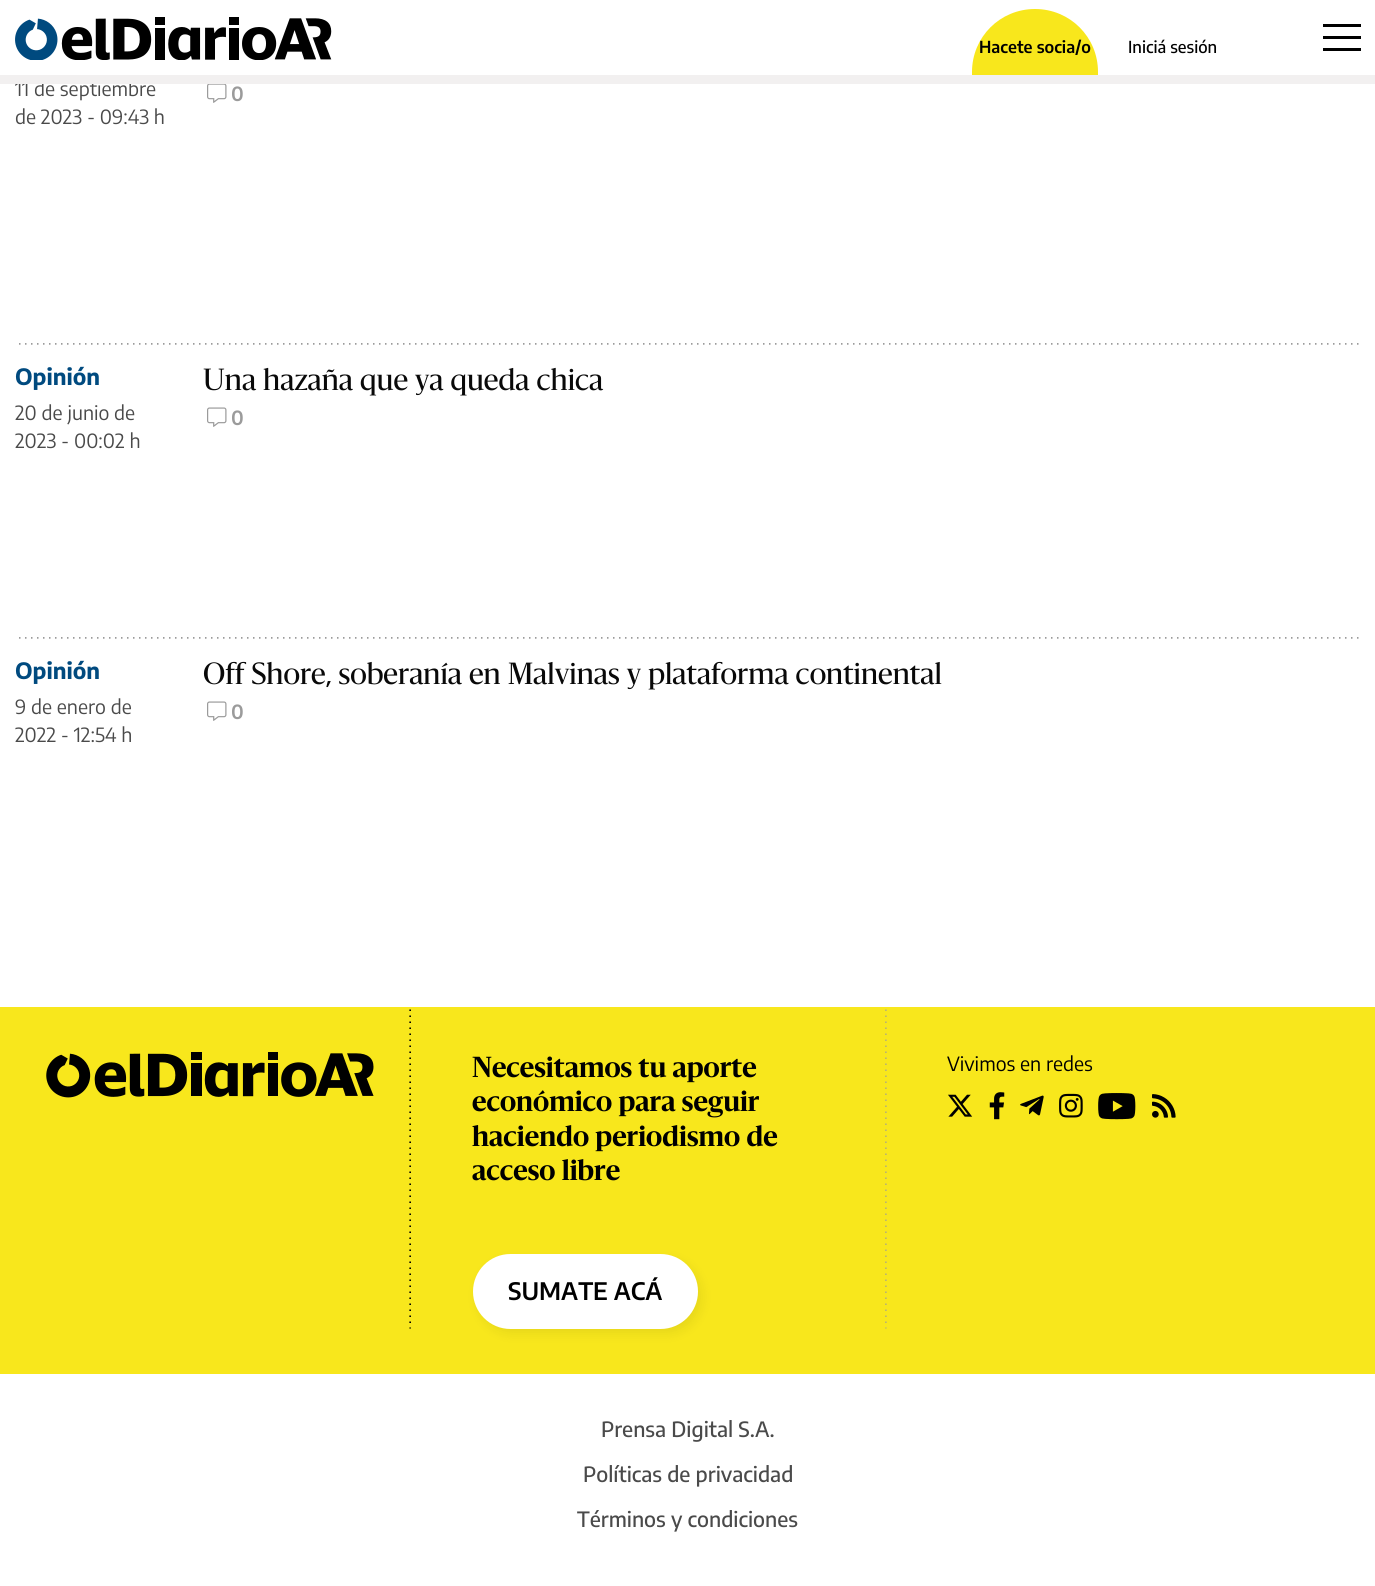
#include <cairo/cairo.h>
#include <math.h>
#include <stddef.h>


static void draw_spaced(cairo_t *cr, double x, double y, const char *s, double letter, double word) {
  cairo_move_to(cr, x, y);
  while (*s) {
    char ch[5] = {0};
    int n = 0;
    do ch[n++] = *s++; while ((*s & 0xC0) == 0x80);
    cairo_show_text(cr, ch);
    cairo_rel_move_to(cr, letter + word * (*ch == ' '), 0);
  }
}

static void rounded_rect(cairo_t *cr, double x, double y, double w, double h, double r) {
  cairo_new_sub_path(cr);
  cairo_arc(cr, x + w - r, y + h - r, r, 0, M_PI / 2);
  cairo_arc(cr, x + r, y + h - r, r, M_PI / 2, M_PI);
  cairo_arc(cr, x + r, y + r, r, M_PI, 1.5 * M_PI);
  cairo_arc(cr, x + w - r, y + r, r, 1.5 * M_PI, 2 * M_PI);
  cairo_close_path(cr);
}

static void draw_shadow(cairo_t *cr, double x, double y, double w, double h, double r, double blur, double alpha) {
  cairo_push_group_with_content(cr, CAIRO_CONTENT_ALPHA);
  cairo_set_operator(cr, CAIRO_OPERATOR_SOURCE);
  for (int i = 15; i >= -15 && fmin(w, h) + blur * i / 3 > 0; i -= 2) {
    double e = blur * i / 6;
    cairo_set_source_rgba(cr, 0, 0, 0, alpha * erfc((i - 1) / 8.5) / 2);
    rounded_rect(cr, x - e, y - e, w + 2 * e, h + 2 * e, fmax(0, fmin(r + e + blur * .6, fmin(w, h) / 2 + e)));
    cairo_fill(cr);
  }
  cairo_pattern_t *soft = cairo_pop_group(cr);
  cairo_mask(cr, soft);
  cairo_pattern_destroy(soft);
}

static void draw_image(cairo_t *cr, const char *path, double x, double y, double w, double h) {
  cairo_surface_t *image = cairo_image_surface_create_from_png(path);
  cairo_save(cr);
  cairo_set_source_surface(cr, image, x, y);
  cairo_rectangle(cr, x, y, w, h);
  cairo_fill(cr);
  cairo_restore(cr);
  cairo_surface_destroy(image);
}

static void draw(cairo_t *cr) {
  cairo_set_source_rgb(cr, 1, 1, 1);
  cairo_paint(cr);
  draw_image(cr, "images/1.png", 15, 17, 317, 43);
  cairo_set_source_rgb(cr, 248 / 255.0, 231 / 255.0, 28 / 255.0);
  cairo_new_path(cr);
  cairo_move_to(cr, 1035, 9);
  cairo_curve_to(cr, 1070, 9, 1098, 37, 1098, 72);
  cairo_line_to(cr, 1098, 75);
  cairo_line_to(cr, 972, 75);
  cairo_line_to(cr, 972, 72);
  cairo_curve_to(cr, 972, 37, 1000, 9, 1035, 9);
  cairo_close_path(cr);
  cairo_fill(cr);
  cairo_set_source_rgb(cr, 0, 0, 0);
  cairo_rectangle(cr, 1323, 24, 38, 3);
  cairo_fill(cr);
  cairo_rectangle(cr, 1323, 36, 38, 3);
  cairo_fill(cr);
  cairo_rectangle(cr, 1323, 48, 38, 3);
  cairo_fill(cr);
  draw_image(cr, "images/2.png", 207, 84, 20, 19);
  draw_image(cr, "images/3.png", 19, 343, 1340, 2);
  draw_image(cr, "images/4.png", 207, 407, 20, 20);
  draw_image(cr, "images/3.png", 19, 637, 1340, 2);
  draw_image(cr, "images/4.png", 207, 701, 20, 20);
  cairo_set_source_rgb(cr, 248 / 255.0, 231 / 255.0, 28 / 255.0);
  cairo_rectangle(cr, 0, 1007, 1375, 367);
  cairo_fill(cr);
  draw_image(cr, "images/5.png", 409, 1009, 2, 320);
  draw_image(cr, "images/6.png", 46, 1052, 328, 46);
  draw_image(cr, "images/7.png", 885, 1009, 2, 320);
  cairo_set_source_rgb(cr, 0, 0, 0);
  draw_shadow(cr, 477, 1259, 225, 75, 37.5, 6, 0.07);
  cairo_set_source_rgb(cr, 1, 1, 1);
  rounded_rect(cr, 473, 1254, 225, 75, 37.5);
  cairo_fill(cr);
  draw_image(cr, "images/8.png", 948, 1094, 25, 23);
  draw_image(cr, "images/9.png", 989, 1092, 16, 28);
  draw_image(cr, "images/10.png", 1020, 1095, 24, 21);
  draw_image(cr, "images/11.png", 1059, 1093, 24, 25);
  draw_image(cr, "images/12.png", 1098, 1093, 38, 27);
  draw_image(cr, "images/13.png", 1152, 1094, 24, 24);
  cairo_select_font_face(cr, "Encode Sans SemiBold", CAIRO_FONT_SLANT_NORMAL, CAIRO_FONT_WEIGHT_NORMAL);
  cairo_set_font_size(cr, 16.5);
  cairo_set_source_rgb(cr, 0, 0, 0);
  cairo_move_to(cr, 979, 53);
  cairo_show_text(cr, "Hacete socia/o");
  cairo_select_font_face(cr, "Encode Sans Medium", CAIRO_FONT_SLANT_NORMAL, CAIRO_FONT_WEIGHT_NORMAL);
  cairo_move_to(cr, 1128, 53);
  cairo_show_text(cr, "Iniciá sesión");
  cairo_select_font_face(cr, "Encode Sans", CAIRO_FONT_SLANT_NORMAL, CAIRO_FONT_WEIGHT_NORMAL);
  cairo_set_font_size(cr, 19.5);
  cairo_set_source_rgb(cr, 74 / 255.0, 74 / 255.0, 74 / 255.0);
  cairo_move_to(cr, 15, 96);
  cairo_show_text(cr, "11 de septiembre");
  cairo_set_source_rgb(cr, 242 / 255.0, 240 / 255.0, 240 / 255.0);
  cairo_rectangle(cr, 0, 75, 1375, 9);
  cairo_fill(cr);
  cairo_set_source_rgb(cr, 74 / 255.0, 74 / 255.0, 74 / 255.0);
  cairo_move_to(cr, 15, 124);
  cairo_show_text(cr, "de 2023 - 09:43 h");
  cairo_select_font_face(cr, "Encode Sans SemiBold", CAIRO_FONT_SLANT_NORMAL, CAIRO_FONT_WEIGHT_NORMAL);
  cairo_set_source_rgb(cr, 155 / 255.0, 155 / 255.0, 155 / 255.0);
  cairo_move_to(cr, 231, 101);
  cairo_show_text(cr, "0");
  cairo_select_font_face(cr, "Encode Sans", CAIRO_FONT_SLANT_NORMAL, CAIRO_FONT_WEIGHT_BOLD);
  cairo_set_font_size(cr, 22.5);
  cairo_set_source_rgb(cr, 0, 74 / 255.0, 127 / 255.0);
  cairo_move_to(cr, 15, 385);
  cairo_show_text(cr, "Opinión");
  cairo_select_font_face(cr, "Encode Sans", CAIRO_FONT_SLANT_NORMAL, CAIRO_FONT_WEIGHT_NORMAL);
  cairo_set_font_size(cr, 19.5);
  cairo_set_source_rgb(cr, 74 / 255.0, 74 / 255.0, 74 / 255.0);
  cairo_move_to(cr, 15, 420);
  cairo_show_text(cr, "20 de junio de");
  cairo_move_to(cr, 15, 448);
  cairo_show_text(cr, "2023 - 00:02 h");
  cairo_select_font_face(cr, "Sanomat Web", CAIRO_FONT_SLANT_NORMAL, CAIRO_FONT_WEIGHT_NORMAL);
  cairo_set_font_size(cr, 28.5);
  cairo_set_source_rgb(cr, 9 / 255.0, 9 / 255.0, 9 / 255.0);
  draw_spaced(cr, 203, 390, "Una hazaña que ya queda chica", 0, 2);
  cairo_select_font_face(cr, "Encode Sans SemiBold", CAIRO_FONT_SLANT_NORMAL, CAIRO_FONT_WEIGHT_NORMAL);
  cairo_set_font_size(cr, 19.5);
  cairo_set_source_rgb(cr, 155 / 255.0, 155 / 255.0, 155 / 255.0);
  cairo_move_to(cr, 231, 425);
  cairo_show_text(cr, "0");
  cairo_select_font_face(cr, "Encode Sans", CAIRO_FONT_SLANT_NORMAL, CAIRO_FONT_WEIGHT_BOLD);
  cairo_set_font_size(cr, 22.5);
  cairo_set_source_rgb(cr, 0, 74 / 255.0, 127 / 255.0);
  cairo_move_to(cr, 15, 679);
  cairo_show_text(cr, "Opinión");
  cairo_select_font_face(cr, "Encode Sans", CAIRO_FONT_SLANT_NORMAL, CAIRO_FONT_WEIGHT_NORMAL);
  cairo_set_font_size(cr, 19.5);
  cairo_set_source_rgb(cr, 74 / 255.0, 74 / 255.0, 74 / 255.0);
  cairo_move_to(cr, 15, 714);
  cairo_show_text(cr, "9 de enero de");
  cairo_move_to(cr, 15, 742);
  cairo_show_text(cr, "2022 - 12:54 h");
  cairo_select_font_face(cr, "Sanomat Web", CAIRO_FONT_SLANT_NORMAL, CAIRO_FONT_WEIGHT_NORMAL);
  cairo_set_font_size(cr, 28.5);
  cairo_set_source_rgb(cr, 9 / 255.0, 9 / 255.0, 9 / 255.0);
  draw_spaced(cr, 203, 684, "Off Shore, soberanía en Malvinas y plataforma continental", 0, 2);
  cairo_select_font_face(cr, "Encode Sans SemiBold", CAIRO_FONT_SLANT_NORMAL, CAIRO_FONT_WEIGHT_NORMAL);
  cairo_set_font_size(cr, 19.5);
  cairo_set_source_rgb(cr, 155 / 255.0, 155 / 255.0, 155 / 255.0);
  cairo_move_to(cr, 231, 719);
  cairo_show_text(cr, "0");
  cairo_select_font_face(cr, "Sanomat Web", CAIRO_FONT_SLANT_NORMAL, CAIRO_FONT_WEIGHT_BOLD);
  cairo_set_font_size(cr, 27);
  cairo_set_source_rgb(cr, 0, 0, 0);
  draw_spaced(cr, 472, 1077, "Necesitamos tu aporte", 0, 2);
  draw_spaced(cr, 472, 1111, "económico para seguir", 0, 2);
  draw_spaced(cr, 472, 1146, "haciendo periodismo de", 0, 2);
  draw_spaced(cr, 472, 1180, "acceso libre", 0, 2);
  cairo_select_font_face(cr, "Encode Sans SemiBold", CAIRO_FONT_SLANT_NORMAL, CAIRO_FONT_WEIGHT_NORMAL);
  cairo_set_font_size(cr, 24);
  cairo_move_to(cr, 508, 1300);
  cairo_show_text(cr, "SUMATE ACÁ");
  cairo_select_font_face(cr, "Encode Sans", CAIRO_FONT_SLANT_NORMAL, CAIRO_FONT_WEIGHT_NORMAL);
  cairo_set_font_size(cr, 19.5);
  cairo_move_to(cr, 947, 1071);
  cairo_show_text(cr, "Vivimos en redes");
  cairo_select_font_face(cr, "Encode Sans Medium", CAIRO_FONT_SLANT_NORMAL, CAIRO_FONT_WEIGHT_NORMAL);
  cairo_set_font_size(cr, 21);
  cairo_set_source_rgb(cr, 74 / 255.0, 74 / 255.0, 74 / 255.0);
  cairo_move_to(cr, 601, 1437);
  cairo_show_text(cr, "Prensa Digital S.A.");
  cairo_move_to(cr, 583, 1482);
  cairo_show_text(cr, "Políticas de privacidad");
  cairo_move_to(cr, 577, 1527);
  cairo_show_text(cr, "Términos y condiciones");
}

int main(void) {
  cairo_surface_t *surface = cairo_image_surface_create(CAIRO_FORMAT_RGB24, 1375, 1586);
  cairo_t *cr = cairo_create(surface);
  cairo_font_options_t *options = cairo_font_options_create();
  cairo_font_options_set_hint_metrics(options, CAIRO_HINT_METRICS_OFF);
  cairo_font_options_set_hint_style(options, CAIRO_HINT_STYLE_NONE);
  cairo_set_font_options(cr, options);
  cairo_set_miter_limit(cr, 4);
  draw(cr);
  cairo_surface_write_to_png(surface, "out.png");
  cairo_font_options_destroy(options);
  cairo_destroy(cr);
  cairo_surface_destroy(surface);
  return 0;
}
